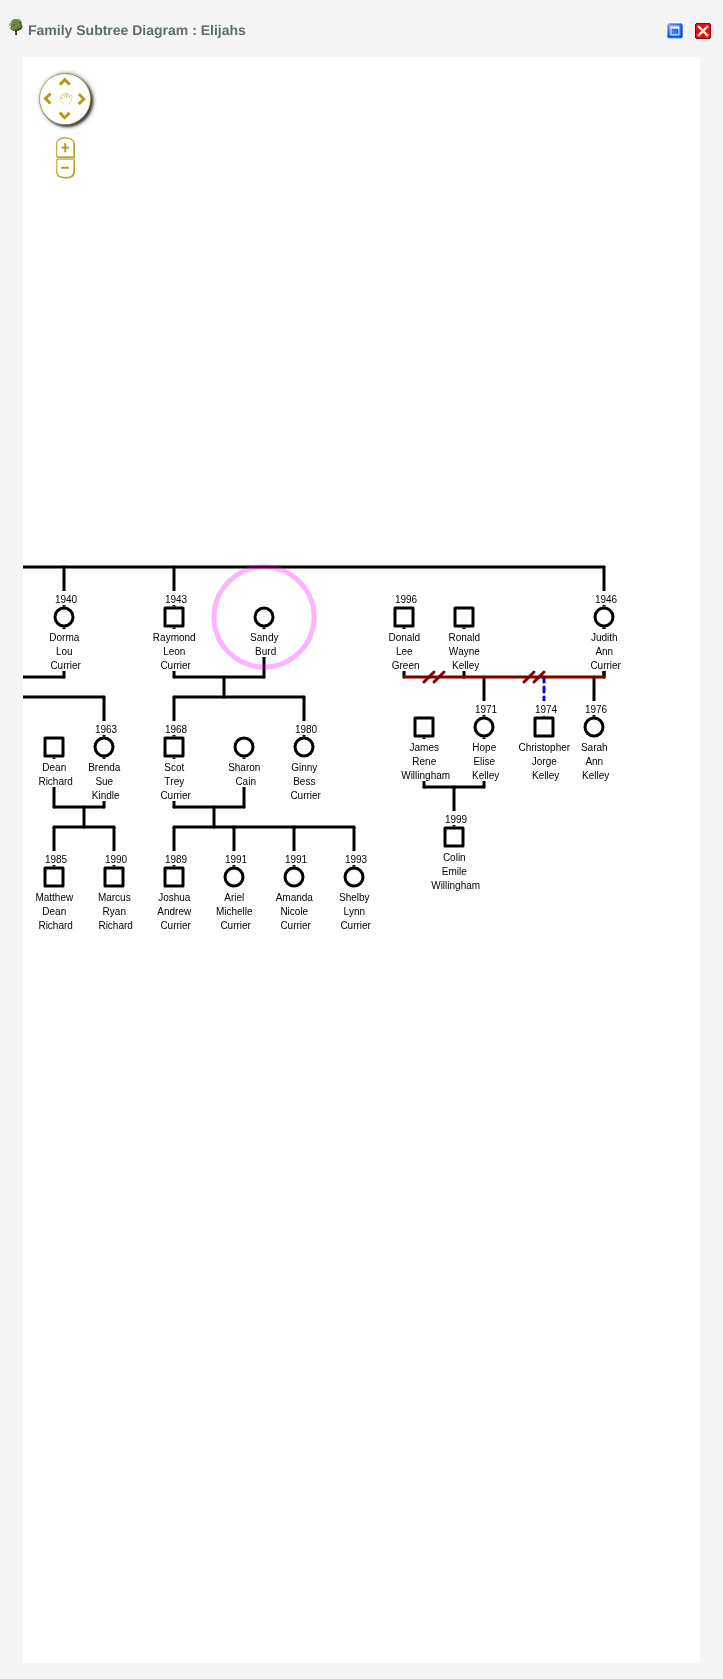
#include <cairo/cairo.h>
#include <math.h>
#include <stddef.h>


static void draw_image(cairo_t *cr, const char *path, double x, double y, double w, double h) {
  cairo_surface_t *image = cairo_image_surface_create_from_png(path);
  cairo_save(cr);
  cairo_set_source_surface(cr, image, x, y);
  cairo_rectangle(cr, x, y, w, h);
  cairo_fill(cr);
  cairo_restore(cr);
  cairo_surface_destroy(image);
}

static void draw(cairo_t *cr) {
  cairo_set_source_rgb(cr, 245 / 255.0, 245 / 255.0, 245 / 255.0);
  cairo_paint(cr);
  draw_image(cr, "images/1.png", 9, 19, 14, 16);
  draw_image(cr, "images/2.png", 667, 23, 16, 16);
  draw_image(cr, "images/3.png", 695, 23, 16, 16);
  cairo_set_source_rgb(cr, 1, 1, 1);
  cairo_rectangle(cr, 23, 57, 677, 1606);
  cairo_fill(cr);
  draw_image(cr, "images/4.png", 23, 70, 598, 859);
  cairo_select_font_face(cr, "Liberation Sans", CAIRO_FONT_SLANT_NORMAL, CAIRO_FONT_WEIGHT_BOLD);
  cairo_set_font_size(cr, 14);
  cairo_set_source_rgb(cr, 93 / 255.0, 107 / 255.0, 108 / 255.0);
  cairo_move_to(cr, 28, 35);
  cairo_show_text(cr, "Family Subtree Diagram : Elijahs");
}

int main(void) {
  cairo_surface_t *surface = cairo_image_surface_create(CAIRO_FORMAT_RGB24, 723, 1679);
  cairo_t *cr = cairo_create(surface);
  cairo_font_options_t *options = cairo_font_options_create();
  cairo_font_options_set_hint_metrics(options, CAIRO_HINT_METRICS_OFF);
  cairo_font_options_set_hint_style(options, CAIRO_HINT_STYLE_NONE);
  cairo_set_font_options(cr, options);
  cairo_set_miter_limit(cr, 4);
  draw(cr);
  cairo_surface_write_to_png(surface, "out.png");
  cairo_font_options_destroy(options);
  cairo_destroy(cr);
  cairo_surface_destroy(surface);
  return 0;
}
